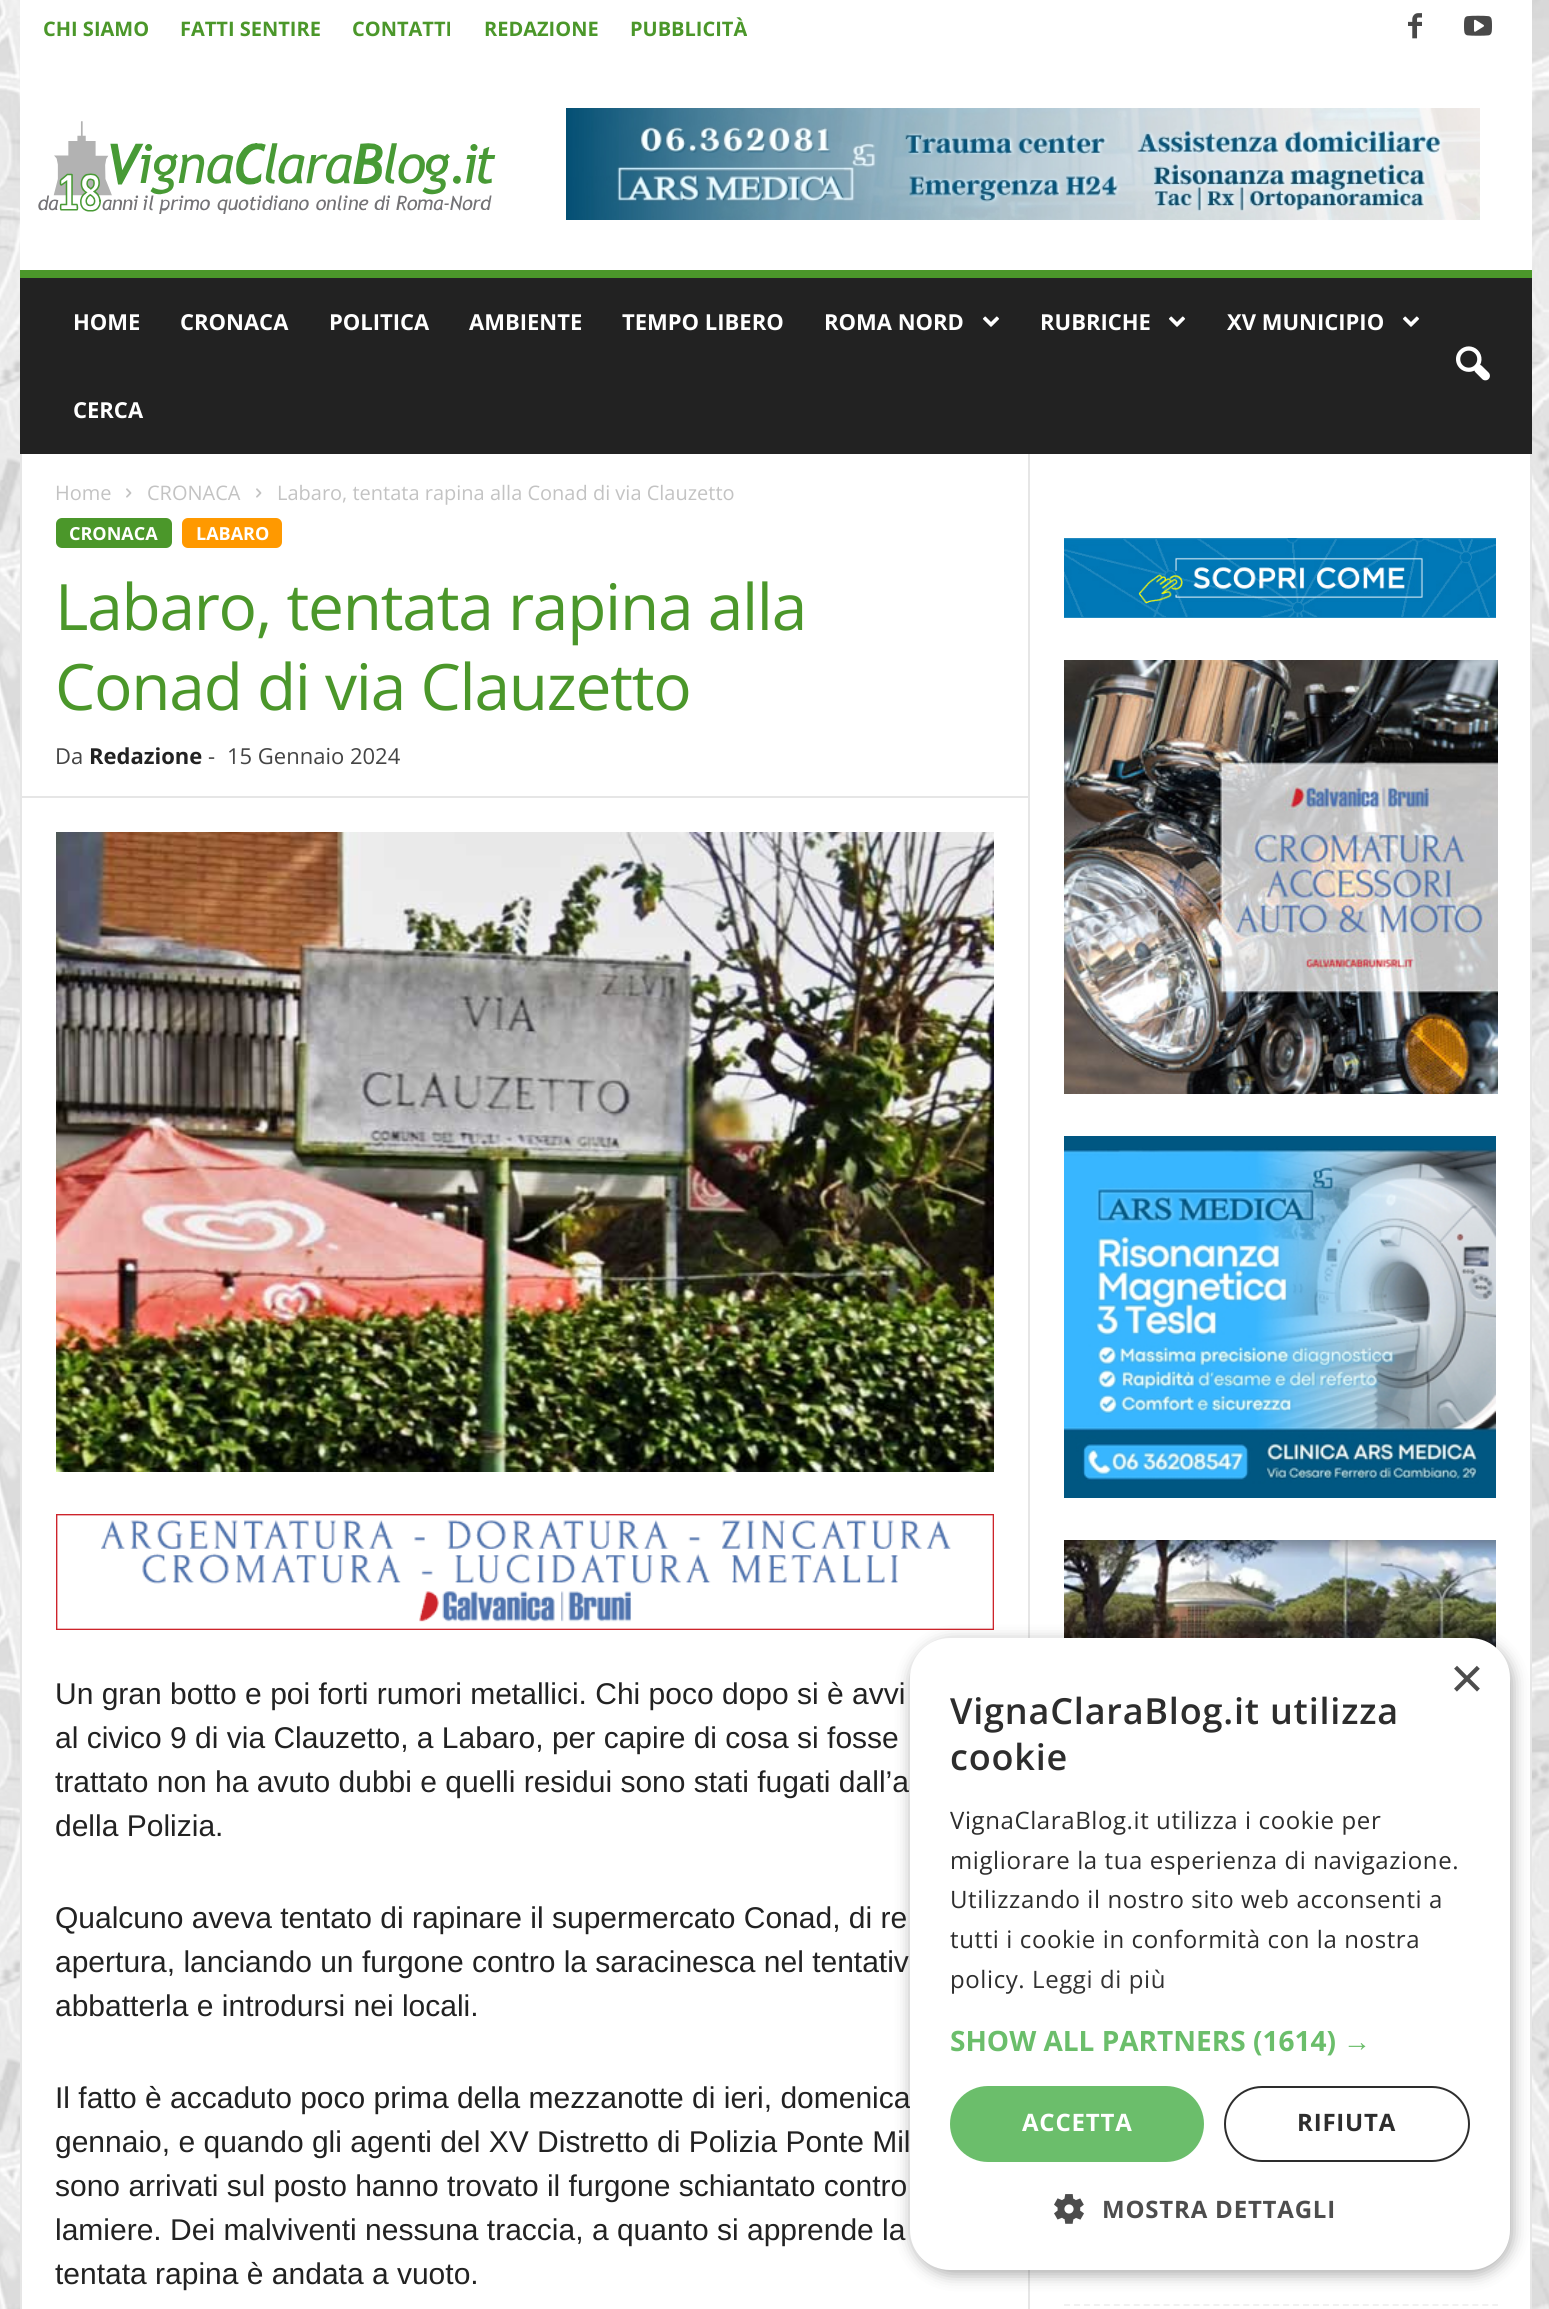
#include <cairo/cairo.h>
#include <math.h>
#include <stddef.h>


static void draw_spaced(cairo_t *cr, double x, double y, const char *s, double letter, double word) {
  cairo_move_to(cr, x, y);
  while (*s) {
    char ch[5] = {0};
    int n = 0;
    do ch[n++] = *s++; while ((*s & 0xC0) == 0x80);
    cairo_show_text(cr, ch);
    cairo_rel_move_to(cr, letter + word * (*ch == ' '), 0);
  }
}

static void rounded_rect(cairo_t *cr, double x, double y, double w, double h, double r) {
  cairo_new_sub_path(cr);
  cairo_arc(cr, x + w - r, y + h - r, r, 0, M_PI / 2);
  cairo_arc(cr, x + r, y + h - r, r, M_PI / 2, M_PI);
  cairo_arc(cr, x + r, y + r, r, M_PI, 1.5 * M_PI);
  cairo_arc(cr, x + w - r, y + r, r, 1.5 * M_PI, 2 * M_PI);
  cairo_close_path(cr);
}

static void draw_shadow(cairo_t *cr, double x, double y, double w, double h, double r, double blur, double alpha) {
  cairo_push_group_with_content(cr, CAIRO_CONTENT_ALPHA);
  cairo_set_operator(cr, CAIRO_OPERATOR_SOURCE);
  for (int i = 15; i >= -15 && fmin(w, h) + blur * i / 3 > 0; i -= 2) {
    double e = blur * i / 6;
    cairo_set_source_rgba(cr, 0, 0, 0, alpha * erfc((i - 1) / 8.5) / 2);
    rounded_rect(cr, x - e, y - e, w + 2 * e, h + 2 * e, fmax(0, fmin(r + e + blur * .6, fmin(w, h) / 2 + e)));
    cairo_fill(cr);
  }
  cairo_pattern_t *soft = cairo_pop_group(cr);
  cairo_mask(cr, soft);
  cairo_pattern_destroy(soft);
}

static void draw_image(cairo_t *cr, const char *path, double x, double y, double w, double h) {
  cairo_surface_t *image = cairo_image_surface_create_from_png(path);
  cairo_save(cr);
  cairo_set_source_surface(cr, image, x, y);
  cairo_rectangle(cr, x, y, w, h);
  cairo_fill(cr);
  cairo_restore(cr);
  cairo_surface_destroy(image);
}

static void draw(cairo_t *cr) {
  cairo_set_source_rgb(cr, 1, 1, 1);
  cairo_paint(cr);
  draw_image(cr, "images/1.png", 0, 0, 1549, 2309);
  cairo_set_source_rgb(cr, 1, 1, 1);
  cairo_rectangle(cr, 20, 0, 1512, 270);
  cairo_fill(cr);
  draw_image(cr, "images/2.png", 38, 121, 458, 93);
  draw_image(cr, "images/3.png", 566, 108, 914, 112);
  draw_image(cr, "images/4.png", 1408, 13, 14, 26);
  draw_image(cr, "images/5.png", 1464, 15, 28, 21);
  cairo_set_source_rgb(cr, 34 / 255.0, 34 / 255.0, 34 / 255.0);
  cairo_rectangle(cr, 20, 278, 1512, 176);
  cairo_fill(cr);
  cairo_set_source_rgb(cr, 75 / 255.0, 151 / 255.0, 42 / 255.0);
  cairo_rectangle(cr, 20, 270, 1512, 8);
  cairo_fill(cr);
  draw_image(cr, "images/6.png", 982, 316, 18, 11);
  draw_image(cr, "images/6.png", 1168, 316, 18, 11);
  draw_image(cr, "images/6.png", 1402, 316, 18, 11);
  draw_image(cr, "images/7.png", 1456, 346, 34, 35);
  cairo_set_source_rgb(cr, 1, 1, 1);
  cairo_rectangle(cr, 22, 454, 1508, 1855);
  cairo_fill(cr);
  cairo_set_source_rgb(cr, 230 / 255.0, 230 / 255.0, 230 / 255.0);
  cairo_rectangle(cr, 20, 454, 2, 1855);
  cairo_fill(cr);
  draw_image(cr, "images/8.png", 126, 488, 6, 10);
  draw_image(cr, "images/8.png", 256, 488, 6, 10);
  cairo_set_source_rgb(cr, 75 / 255.0, 151 / 255.0, 42 / 255.0);
  rounded_rect(cr, 56, 518, 116, 30, 6);
  cairo_fill(cr);
  cairo_set_source_rgb(cr, 1, 153 / 255.0, 0);
  rounded_rect(cr, 182, 518, 100, 30, 6);
  cairo_fill(cr);
  cairo_set_source_rgb(cr, 230 / 255.0, 230 / 255.0, 230 / 255.0);
  cairo_rectangle(cr, 22, 796, 1006, 2);
  cairo_fill(cr);
  draw_image(cr, "images/9.png", 56, 832, 938, 640);
  draw_image(cr, "images/10.png", 56, 1514, 938, 116);
  cairo_rectangle(cr, 1028, 454, 2, 1855);
  cairo_fill(cr);
  draw_image(cr, "images/11.png", 1064, 538, 432, 80);
  draw_image(cr, "images/12.png", 1064, 660, 434, 434);
  draw_image(cr, "images/13.png", 1064, 1136, 432, 362);
  draw_image(cr, "images/14.png", 1064, 1540, 432, 108);
  cairo_new_path(cr);
  cairo_move_to(cr, 1064, 2305);
  cairo_line_to(cr, 1498, 2305);
  cairo_set_source_rgb(cr, 241 / 255.0, 241 / 255.0, 241 / 255.0);
  cairo_set_dash(cr, (double[]){6, 3.96}, 2, 0);
  cairo_stroke(cr);
  cairo_set_source_rgb(cr, 230 / 255.0, 230 / 255.0, 230 / 255.0);
  cairo_rectangle(cr, 1530, 469, 2, 1840);
  cairo_fill(cr);
  cairo_set_source_rgb(cr, 0, 0, 0);
  draw_shadow(cr, 912, 1642, 600, 632, 40, 8, 0.35);
  cairo_select_font_face(cr, "Open Sans", CAIRO_FONT_SLANT_NORMAL, CAIRO_FONT_WEIGHT_BOLD);
  cairo_set_font_size(cr, 20);
  cairo_set_source_rgb(cr, 75 / 255.0, 151 / 255.0, 42 / 255.0);
  cairo_move_to(cr, 43, 36);
  cairo_show_text(cr, "CHI SIAMO");
  cairo_move_to(cr, 180, 36);
  cairo_show_text(cr, "FATTI SENTIRE");
  cairo_move_to(cr, 352, 36);
  cairo_show_text(cr, "CONTATTI");
  cairo_move_to(cr, 484, 36);
  cairo_show_text(cr, "REDAZIONE");
  cairo_move_to(cr, 630, 36);
  cairo_show_text(cr, "PUBBLICITÀ");
  cairo_set_font_size(cr, 22);
  cairo_set_source_rgb(cr, 1, 1, 1);
  cairo_move_to(cr, 73, 330);
  cairo_show_text(cr, "HOME");
  cairo_move_to(cr, 180, 330);
  cairo_show_text(cr, "CRONACA");
  cairo_move_to(cr, 329, 330);
  cairo_show_text(cr, "POLITICA");
  cairo_move_to(cr, 469, 330);
  cairo_show_text(cr, "AMBIENTE");
  cairo_move_to(cr, 622, 330);
  cairo_show_text(cr, "TEMPO LIBERO");
  cairo_move_to(cr, 824, 330);
  cairo_show_text(cr, "ROMA NORD");
  cairo_move_to(cr, 1040, 330);
  cairo_show_text(cr, "RUBRICHE");
  cairo_move_to(cr, 1227, 330);
  cairo_show_text(cr, "XV MUNICIPIO");
  cairo_move_to(cr, 73, 418);
  cairo_show_text(cr, "CERCA");
  cairo_select_font_face(cr, "Open Sans", CAIRO_FONT_SLANT_NORMAL, CAIRO_FONT_WEIGHT_NORMAL);
  cairo_set_font_size(cr, 20);
  cairo_set_source_rgb(cr, 195 / 255.0, 195 / 255.0, 195 / 255.0);
  cairo_move_to(cr, 55, 500);
  cairo_show_text(cr, "Home");
  cairo_move_to(cr, 147, 500);
  cairo_show_text(cr, "CRONACA");
  cairo_move_to(cr, 277, 500);
  cairo_show_text(cr, "Labaro, tentata rapina alla Conad di via Clauzetto");
  cairo_select_font_face(cr, "Open Sans", CAIRO_FONT_SLANT_NORMAL, CAIRO_FONT_WEIGHT_BOLD);
  cairo_set_font_size(cr, 18);
  cairo_set_source_rgb(cr, 1, 1, 1);
  cairo_move_to(cr, 69, 540);
  cairo_show_text(cr, "CRONACA");
  cairo_move_to(cr, 196, 540);
  cairo_show_text(cr, "LABARO");
  cairo_select_font_face(cr, "Open Sans", CAIRO_FONT_SLANT_NORMAL, CAIRO_FONT_WEIGHT_NORMAL);
  cairo_set_font_size(cr, 64);
  cairo_set_source_rgb(cr, 75 / 255.0, 151 / 255.0, 42 / 255.0);
  draw_spaced(cr, 55, 630, "Labaro, tentata rapina alla", -1.25, 0);
  draw_spaced(cr, 55, 710, "Conad di via Clauzetto", -1.25, 0);
  cairo_set_font_size(cr, 22);
  cairo_set_source_rgb(cr, 68 / 255.0, 68 / 255.0, 68 / 255.0);
  cairo_move_to(cr, 55, 764);
  cairo_show_text(cr, "Da");
  cairo_select_font_face(cr, "Open Sans", CAIRO_FONT_SLANT_NORMAL, CAIRO_FONT_WEIGHT_BOLD);
  cairo_set_source_rgb(cr, 34 / 255.0, 34 / 255.0, 34 / 255.0);
  cairo_move_to(cr, 89, 764);
  cairo_show_text(cr, "Redazione");
  cairo_select_font_face(cr, "Open Sans", CAIRO_FONT_SLANT_NORMAL, CAIRO_FONT_WEIGHT_NORMAL);
  cairo_set_source_rgb(cr, 68 / 255.0, 68 / 255.0, 68 / 255.0);
  cairo_move_to(cr, 208, 764);
  cairo_show_text(cr, "-");
  cairo_move_to(cr, 227, 764);
  cairo_show_text(cr, "15 Gennaio 2024");
  cairo_select_font_face(cr, "Liberation Sans", CAIRO_FONT_SLANT_NORMAL, CAIRO_FONT_WEIGHT_NORMAL);
  cairo_set_font_size(cr, 30);
  cairo_set_source_rgb(cr, 34 / 255.0, 34 / 255.0, 34 / 255.0);
  cairo_move_to(cr, 55, 1704);
  cairo_show_text(cr, "Un gran botto e poi forti rumori metallici. Chi poco dopo si è avvi");
  cairo_move_to(cr, 55, 1748);
  cairo_show_text(cr, "al civico 9 di via Clauzetto, a Labaro, per capire di cosa si fosse");
  cairo_move_to(cr, 55, 1792);
  cairo_show_text(cr, "trattato non ha avuto dubbi e quelli residui sono stati fugati dall’a");
  cairo_move_to(cr, 55, 1836);
  cairo_show_text(cr, "della Polizia.");
  cairo_move_to(cr, 55, 1928);
  cairo_show_text(cr, "Qualcuno aveva tentato di rapinare il supermercato Conad, di re");
  cairo_move_to(cr, 55, 1972);
  cairo_show_text(cr, "apertura, lanciando un furgone contro la saracinesca nel tentativ");
  cairo_move_to(cr, 55, 2016);
  cairo_show_text(cr, "abbatterla e introdursi nei locali.");
  cairo_move_to(cr, 55, 2108);
  cairo_show_text(cr, "Il fatto è accaduto poco prima della mezzanotte di ieri, domenica");
  cairo_move_to(cr, 55, 2152);
  cairo_show_text(cr, "gennaio, e quando gli agenti del XV Distretto di Polizia Ponte Mil");
  cairo_move_to(cr, 55, 2196);
  cairo_show_text(cr, "sono arrivati sul posto hanno trovato il furgone schiantato contro");
  cairo_move_to(cr, 55, 2240);
  cairo_show_text(cr, "lamiere. Dei malviventi nessuna traccia, a quanto si apprende la");
  cairo_move_to(cr, 55, 2284);
  cairo_show_text(cr, "tentata rapina è andata a vuoto.");
  cairo_set_source_rgb(cr, 1, 1, 1);
  rounded_rect(cr, 910, 1638, 600, 632, 40);
  cairo_fill(cr);
  cairo_set_font_size(cr, 58);
  cairo_set_source_rgb(cr, 77 / 255.0, 77 / 255.0, 77 / 255.0);
  cairo_move_to(cr, 1450, 1698);
  cairo_show_text(cr, "×");
  cairo_select_font_face(cr, "Open Sans SemiBold", CAIRO_FONT_SLANT_NORMAL, CAIRO_FONT_WEIGHT_NORMAL);
  cairo_set_font_size(cr, 36);
  cairo_set_source_rgb(cr, 45 / 255.0, 45 / 255.0, 45 / 255.0);
  draw_spaced(cr, 950, 1724, "VignaClaraBlog.it utilizza", 0.8, 0);
  draw_spaced(cr, 950, 1770, "cookie", 0.8, 0);
  cairo_select_font_face(cr, "Open Sans", CAIRO_FONT_SLANT_NORMAL, CAIRO_FONT_WEIGHT_NORMAL);
  cairo_set_font_size(cr, 24);
  draw_spaced(cr, 950, 1829, "VignaClaraBlog.it utilizza i cookie per", 0.6, 0);
  draw_spaced(cr, 950, 1869, "migliorare la tua esperienza di navigazione.", 0.6, 0);
  draw_spaced(cr, 950, 1908, "Utilizzando il nostro sito web acconsenti a", 0.6, 0);
  draw_spaced(cr, 950, 1948, "tutti i cookie in conformità con la nostra", 0.6, 0);
  draw_spaced(cr, 950, 1988, "policy.", 0.6, 0);
  cairo_set_source_rgb(cr, 51 / 255.0, 51 / 255.0, 51 / 255.0);
  draw_spaced(cr, 1032, 1988, "Leggi di più", 0.6, 0);
  cairo_select_font_face(cr, "Open Sans", CAIRO_FONT_SLANT_NORMAL, CAIRO_FONT_WEIGHT_BOLD);
  cairo_set_font_size(cr, 28);
  cairo_set_source_rgb(cr, 107 / 255.0, 190 / 255.0, 107 / 255.0);
  cairo_move_to(cr, 950, 2051);
  cairo_show_text(cr, "SHOW ALL PARTNERS (1614)");
  cairo_select_font_face(cr, "Liberation Sans", CAIRO_FONT_SLANT_NORMAL, CAIRO_FONT_WEIGHT_BOLD);
  cairo_move_to(cr, 1343, 2051);
  cairo_show_text(cr, "→");
  rounded_rect(cr, 950, 2086, 254, 76, 38);
  cairo_fill(cr);
  cairo_select_font_face(cr, "Open Sans", CAIRO_FONT_SLANT_NORMAL, CAIRO_FONT_WEIGHT_BOLD);
  cairo_set_font_size(cr, 24);
  cairo_set_source_rgb(cr, 1, 1, 1);
  draw_spaced(cr, 1022, 2131, "ACCETTA", 0.8, 0);
  rounded_rect(cr, 1225, 2087, 244, 74, 37);
  cairo_set_source_rgb(cr, 45 / 255.0, 45 / 255.0, 45 / 255.0);
  cairo_set_dash(cr, NULL, 0, 0);
  cairo_stroke(cr);
  draw_spaced(cr, 1297, 2131, "RIFIUTA", 0.8, 0);
  draw_image(cr, "images/15.png", 1054, 2194, 30, 30);
  cairo_set_source_rgb(cr, 77 / 255.0, 77 / 255.0, 77 / 255.0);
  draw_spaced(cr, 1102, 2218, "MOSTRA DETTAGLI", 0.8, 0);
}

int main(void) {
  cairo_surface_t *surface = cairo_image_surface_create(CAIRO_FORMAT_RGB24, 1549, 2309);
  cairo_t *cr = cairo_create(surface);
  cairo_font_options_t *options = cairo_font_options_create();
  cairo_font_options_set_hint_metrics(options, CAIRO_HINT_METRICS_OFF);
  cairo_font_options_set_hint_style(options, CAIRO_HINT_STYLE_NONE);
  cairo_set_font_options(cr, options);
  cairo_set_miter_limit(cr, 4);
  draw(cr);
  cairo_surface_write_to_png(surface, "out.png");
  cairo_font_options_destroy(options);
  cairo_destroy(cr);
  cairo_surface_destroy(surface);
  return 0;
}
